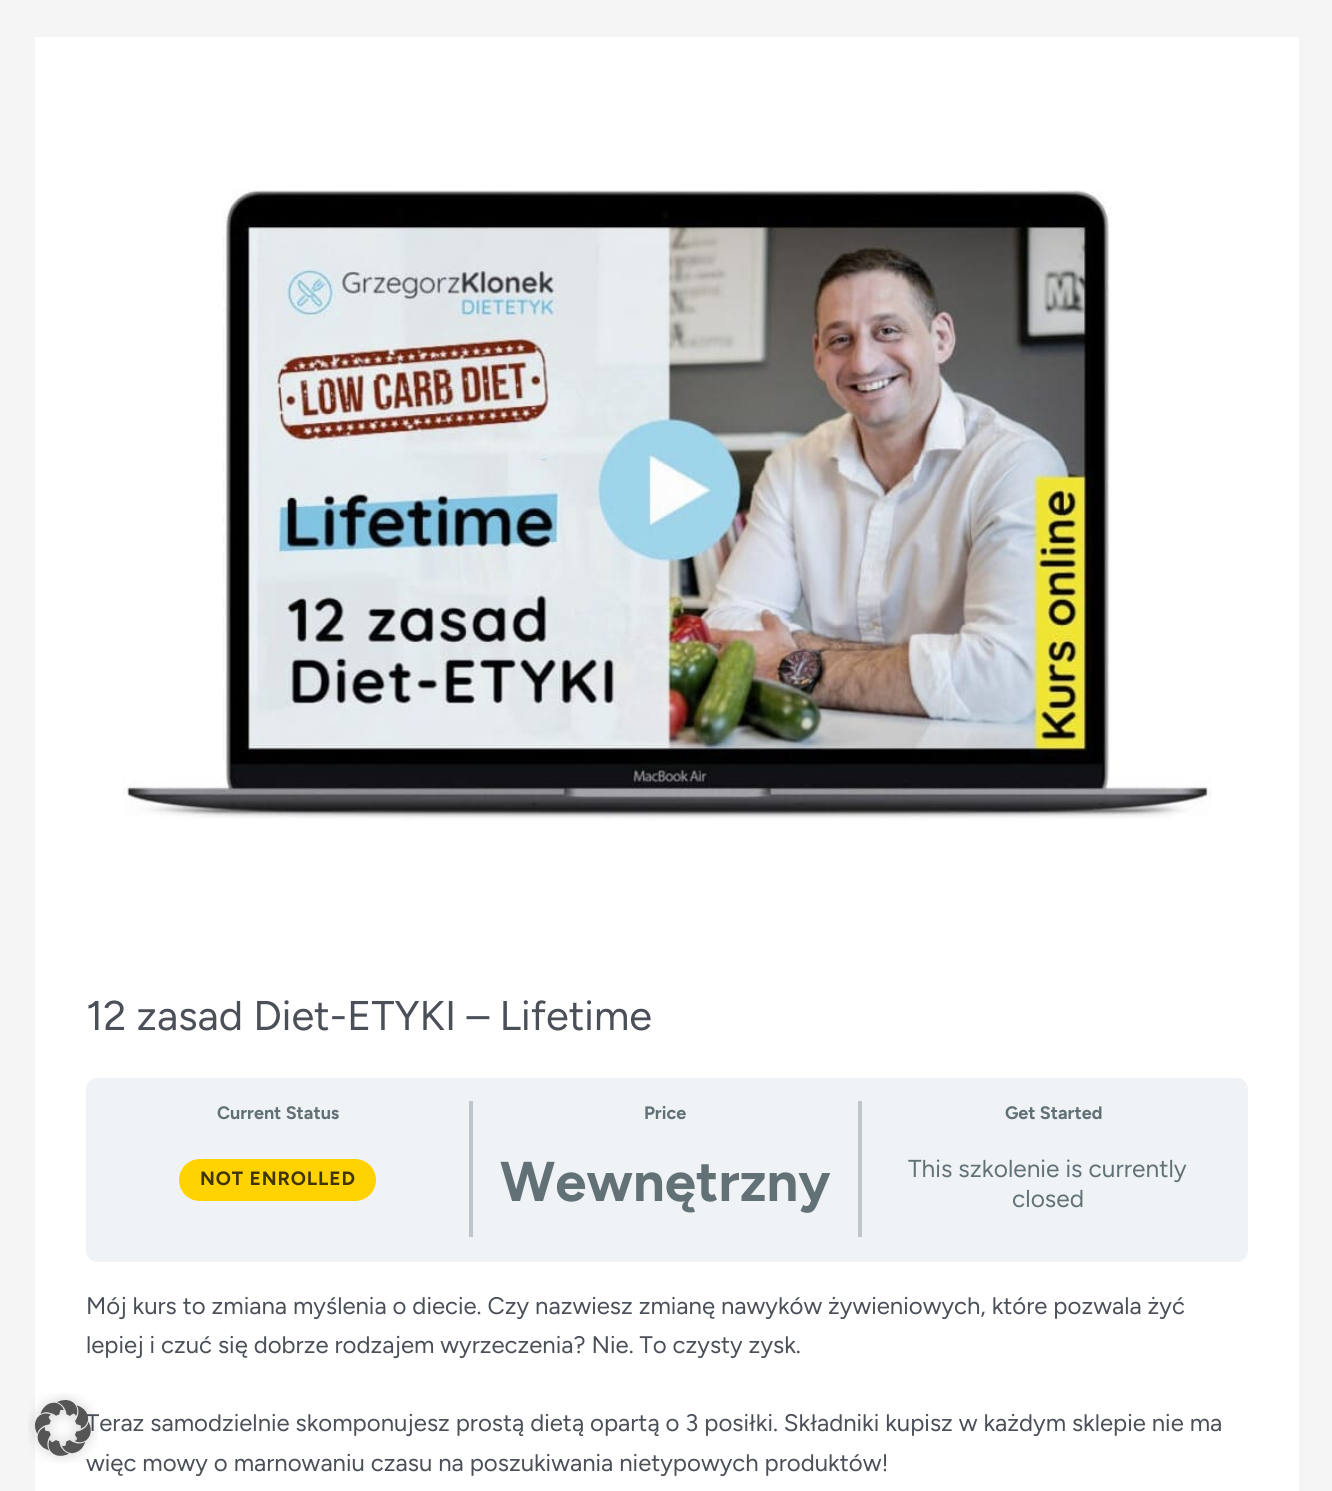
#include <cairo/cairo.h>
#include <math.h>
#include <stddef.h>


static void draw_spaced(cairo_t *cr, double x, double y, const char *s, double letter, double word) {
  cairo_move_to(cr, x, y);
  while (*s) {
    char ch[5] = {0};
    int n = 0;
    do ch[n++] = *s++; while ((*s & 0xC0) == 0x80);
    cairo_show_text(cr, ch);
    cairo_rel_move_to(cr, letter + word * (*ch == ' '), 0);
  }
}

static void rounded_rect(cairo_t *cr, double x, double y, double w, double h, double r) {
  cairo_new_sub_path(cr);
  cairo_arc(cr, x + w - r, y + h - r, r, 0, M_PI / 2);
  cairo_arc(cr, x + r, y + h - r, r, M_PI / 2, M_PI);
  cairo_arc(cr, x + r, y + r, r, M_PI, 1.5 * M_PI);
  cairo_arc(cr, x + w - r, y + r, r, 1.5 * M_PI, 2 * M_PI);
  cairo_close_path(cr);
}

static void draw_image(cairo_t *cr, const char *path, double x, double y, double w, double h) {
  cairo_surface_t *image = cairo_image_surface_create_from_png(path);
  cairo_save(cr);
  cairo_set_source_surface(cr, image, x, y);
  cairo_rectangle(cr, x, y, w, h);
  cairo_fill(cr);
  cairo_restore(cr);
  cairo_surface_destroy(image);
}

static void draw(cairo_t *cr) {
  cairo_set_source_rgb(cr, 245 / 255.0, 245 / 255.0, 245 / 255.0);
  cairo_paint(cr);
  cairo_set_source_rgb(cr, 1, 1, 1);
  cairo_rectangle(cr, 35, 37, 1264, 1454);
  cairo_fill(cr);
  draw_image(cr, "images/2.png", 122, 189, 1090, 632);
  cairo_set_source_rgb(cr, 240 / 255.0, 243 / 255.0, 246 / 255.0);
  rounded_rect(cr, 86, 1078, 1162, 184, 11);
  cairo_fill(cr);
  cairo_set_source_rgb(cr, 190 / 255.0, 197 / 255.0, 203 / 255.0);
  cairo_rectangle(cr, 469, 1101, 4, 136);
  cairo_fill(cr);
  cairo_set_source_rgb(cr, 1, 210 / 255.0, 0);
  rounded_rect(cr, 179, 1159, 197, 42, 21);
  cairo_fill(cr);
  cairo_set_source_rgb(cr, 190 / 255.0, 197 / 255.0, 203 / 255.0);
  cairo_rectangle(cr, 858, 1101, 4, 136);
  cairo_fill(cr);
  cairo_select_font_face(cr, "Figtree", CAIRO_FONT_SLANT_NORMAL, CAIRO_FONT_WEIGHT_NORMAL);
  cairo_set_font_size(cr, 41.5);
  cairo_set_source_rgb(cr, 75 / 255.0, 79 / 255.0, 88 / 255.0);
  cairo_move_to(cr, 86, 1030);
  cairo_show_text(cr, "12 zasad Diet-ETYKI – Lifetime");
  cairo_select_font_face(cr, "Figtree", CAIRO_FONT_SLANT_NORMAL, CAIRO_FONT_WEIGHT_BOLD);
  cairo_set_font_size(cr, 18);
  cairo_set_source_rgb(cr, 97 / 255.0, 113 / 255.0, 117 / 255.0);
  cairo_move_to(cr, 217, 1119);
  cairo_show_text(cr, "Current Status");
  cairo_set_font_size(cr, 19.25);
  cairo_set_source_rgb(cr, 64 / 255.0, 53 / 255.0, 0);
  draw_spaced(cr, 200, 1185, "NOT ENROLLED", 0.9, 0);
  cairo_set_font_size(cr, 18);
  cairo_set_source_rgb(cr, 97 / 255.0, 113 / 255.0, 117 / 255.0);
  cairo_move_to(cr, 644, 1119);
  cairo_show_text(cr, "Price");
  cairo_set_font_size(cr, 56);
  cairo_move_to(cr, 500, 1201);
  cairo_show_text(cr, "Wewnętrzny");
  cairo_set_font_size(cr, 18);
  cairo_move_to(cr, 1005, 1119);
  cairo_show_text(cr, "Get Started");
  cairo_select_font_face(cr, "Figtree", CAIRO_FONT_SLANT_NORMAL, CAIRO_FONT_WEIGHT_NORMAL);
  cairo_set_font_size(cr, 24.5);
  cairo_move_to(cr, 908, 1177);
  cairo_show_text(cr, "This szkolenie is currently");
  cairo_move_to(cr, 1012, 1207);
  cairo_show_text(cr, "closed");
  cairo_set_font_size(cr, 23.95);
  cairo_set_source_rgb(cr, 75 / 255.0, 79 / 255.0, 88 / 255.0);
  cairo_move_to(cr, 86, 1314);
  cairo_show_text(cr, "Mój kurs to zmiana myślenia o diecie. Czy nazwiesz zmianę nawyków żywieniowych, które pozwala żyć");
  cairo_move_to(cr, 86, 1353);
  cairo_show_text(cr, "lepiej i czuć się dobrze rodzajem wyrzeczenia? Nie. To czysty zysk.");
  cairo_move_to(cr, 86, 1431);
  cairo_show_text(cr, "Teraz samodzielnie skomponujesz prostą dietą opartą o 3 posiłki. Składniki kupisz w każdym sklepie nie ma");
  cairo_move_to(cr, 86, 1471);
  cairo_show_text(cr, "więc mowy o marnowaniu czasu na poszukiwania nietypowych produktów!");
  draw_image(cr, "images/1.png", 28, 1393, 70, 70);
}

int main(void) {
  cairo_surface_t *surface = cairo_image_surface_create(CAIRO_FORMAT_RGB24, 1332, 1491);
  cairo_t *cr = cairo_create(surface);
  cairo_font_options_t *options = cairo_font_options_create();
  cairo_font_options_set_hint_metrics(options, CAIRO_HINT_METRICS_OFF);
  cairo_font_options_set_hint_style(options, CAIRO_HINT_STYLE_NONE);
  cairo_set_font_options(cr, options);
  cairo_set_miter_limit(cr, 4);
  draw(cr);
  cairo_surface_write_to_png(surface, "out.png");
  cairo_font_options_destroy(options);
  cairo_destroy(cr);
  cairo_surface_destroy(surface);
  return 0;
}
